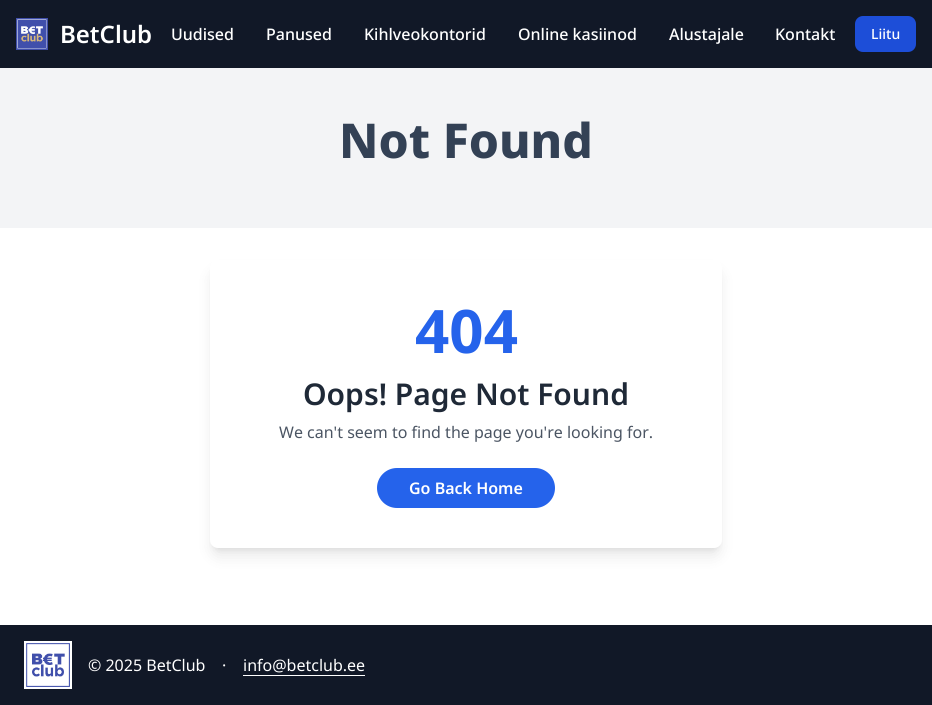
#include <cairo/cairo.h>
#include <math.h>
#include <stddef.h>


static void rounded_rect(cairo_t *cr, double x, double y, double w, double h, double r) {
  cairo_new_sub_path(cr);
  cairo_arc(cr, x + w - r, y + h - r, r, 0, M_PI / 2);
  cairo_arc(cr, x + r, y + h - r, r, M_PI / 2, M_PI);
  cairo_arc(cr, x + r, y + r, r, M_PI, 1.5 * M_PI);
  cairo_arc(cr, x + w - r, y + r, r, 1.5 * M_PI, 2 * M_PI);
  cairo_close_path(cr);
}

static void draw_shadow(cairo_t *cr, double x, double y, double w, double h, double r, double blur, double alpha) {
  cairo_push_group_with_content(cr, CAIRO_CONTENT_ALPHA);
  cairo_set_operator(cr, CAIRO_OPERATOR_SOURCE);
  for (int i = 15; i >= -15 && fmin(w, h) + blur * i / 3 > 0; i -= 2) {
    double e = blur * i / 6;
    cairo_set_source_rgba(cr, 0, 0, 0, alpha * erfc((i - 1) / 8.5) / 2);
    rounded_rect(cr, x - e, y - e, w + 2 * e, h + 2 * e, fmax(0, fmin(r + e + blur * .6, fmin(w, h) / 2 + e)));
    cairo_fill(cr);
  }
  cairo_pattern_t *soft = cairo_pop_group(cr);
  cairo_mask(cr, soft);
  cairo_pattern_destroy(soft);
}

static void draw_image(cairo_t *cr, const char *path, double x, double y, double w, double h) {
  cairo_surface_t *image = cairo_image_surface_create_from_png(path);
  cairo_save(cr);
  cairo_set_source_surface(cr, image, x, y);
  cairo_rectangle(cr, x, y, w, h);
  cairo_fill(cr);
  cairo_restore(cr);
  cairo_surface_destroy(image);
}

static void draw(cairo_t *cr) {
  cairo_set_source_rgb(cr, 1, 1, 1);
  cairo_paint(cr);
  cairo_set_source_rgb(cr, 17 / 255.0, 24 / 255.0, 39 / 255.0);
  cairo_rectangle(cr, 0, 0, 932, 68);
  cairo_fill(cr);
  draw_image(cr, "images/1.png", 16, 18, 32, 32);
  cairo_set_source_rgb(cr, 29 / 255.0, 78 / 255.0, 216 / 255.0);
  rounded_rect(cr, 855, 16, 61, 36, 8);
  cairo_fill(cr);
  cairo_set_source_rgb(cr, 243 / 255.0, 244 / 255.0, 246 / 255.0);
  cairo_rectangle(cr, 0, 68, 932, 160);
  cairo_fill(cr);
  cairo_set_source_rgb(cr, 0, 0, 0);
  draw_shadow(cr, 214, 268, 504, 280, 4, 3, 0.1);
  draw_shadow(cr, 213, 273, 506, 282, 5, 7.5, 0.1);
  cairo_set_source_rgb(cr, 1, 1, 1);
  rounded_rect(cr, 210, 260, 512, 288, 8);
  cairo_fill(cr);
  cairo_set_source_rgb(cr, 37 / 255.0, 99 / 255.0, 235 / 255.0);
  rounded_rect(cr, 377, 468, 178, 40, 20);
  cairo_fill(cr);
  cairo_set_source_rgb(cr, 17 / 255.0, 24 / 255.0, 39 / 255.0);
  cairo_rectangle(cr, 0, 625, 932, 80);
  cairo_fill(cr);
  draw_image(cr, "images/2.png", 24, 641, 48, 48);
  cairo_set_source_rgb(cr, 1, 1, 1);
  cairo_rectangle(cr, 243, 675, 122, 1);
  cairo_fill(cr);
  cairo_select_font_face(cr, "Noto Sans SemiBold", CAIRO_FONT_SLANT_NORMAL, CAIRO_FONT_WEIGHT_NORMAL);
  cairo_set_font_size(cr, 24);
  cairo_move_to(cr, 60, 43);
  cairo_show_text(cr, "BetClub");
  cairo_select_font_face(cr, "Noto Sans Medium", CAIRO_FONT_SLANT_NORMAL, CAIRO_FONT_WEIGHT_NORMAL);
  cairo_set_font_size(cr, 16);
  cairo_move_to(cr, 171, 40);
  cairo_show_text(cr, "Uudised");
  cairo_move_to(cr, 266, 40);
  cairo_show_text(cr, "Panused");
  cairo_move_to(cr, 364, 40);
  cairo_show_text(cr, "Kihlveokontorid");
  cairo_move_to(cr, 518, 40);
  cairo_show_text(cr, "Online kasiinod");
  cairo_move_to(cr, 669, 40);
  cairo_show_text(cr, "Alustajale");
  cairo_move_to(cr, 775, 40);
  cairo_show_text(cr, "Kontakt");
  cairo_set_font_size(cr, 14);
  cairo_move_to(cr, 871, 39);
  cairo_show_text(cr, "Liitu");
  cairo_select_font_face(cr, "Noto Sans ExtraBold", CAIRO_FONT_SLANT_NORMAL, CAIRO_FONT_WEIGHT_NORMAL);
  cairo_set_font_size(cr, 48);
  cairo_set_source_rgb(cr, 51 / 255.0, 65 / 255.0, 85 / 255.0);
  cairo_move_to(cr, 339, 158);
  cairo_show_text(cr, "Not Found");
  cairo_select_font_face(cr, "Noto Sans", CAIRO_FONT_SLANT_NORMAL, CAIRO_FONT_WEIGHT_BOLD);
  cairo_set_font_size(cr, 60);
  cairo_set_source_rgb(cr, 37 / 255.0, 99 / 255.0, 235 / 255.0);
  cairo_move_to(cr, 415, 353);
  cairo_show_text(cr, "404");
  cairo_select_font_face(cr, "Noto Sans SemiBold", CAIRO_FONT_SLANT_NORMAL, CAIRO_FONT_WEIGHT_NORMAL);
  cairo_set_font_size(cr, 30);
  cairo_set_source_rgb(cr, 31 / 255.0, 41 / 255.0, 55 / 255.0);
  cairo_move_to(cr, 303, 405);
  cairo_show_text(cr, "Oops! Page Not Found");
  cairo_select_font_face(cr, "Noto Sans", CAIRO_FONT_SLANT_NORMAL, CAIRO_FONT_WEIGHT_NORMAL);
  cairo_set_font_size(cr, 16);
  cairo_set_source_rgb(cr, 75 / 255.0, 85 / 255.0, 99 / 255.0);
  cairo_move_to(cr, 279, 438);
  cairo_show_text(cr, "We can't seem to find the page you're looking for.");
  cairo_select_font_face(cr, "Noto Sans SemiBold", CAIRO_FONT_SLANT_NORMAL, CAIRO_FONT_WEIGHT_NORMAL);
  cairo_set_source_rgb(cr, 1, 1, 1);
  cairo_move_to(cr, 409, 494);
  cairo_show_text(cr, "Go Back Home");
  cairo_select_font_face(cr, "Noto Sans", CAIRO_FONT_SLANT_NORMAL, CAIRO_FONT_WEIGHT_NORMAL);
  cairo_move_to(cr, 88, 671);
  cairo_show_text(cr, "© 2025 BetClub");
  cairo_move_to(cr, 222, 671);
  cairo_show_text(cr, "·");
  cairo_move_to(cr, 243, 671);
  cairo_show_text(cr, "info@betclub.ee");
}

int main(void) {
  cairo_surface_t *surface = cairo_image_surface_create(CAIRO_FORMAT_RGB24, 932, 705);
  cairo_t *cr = cairo_create(surface);
  cairo_font_options_t *options = cairo_font_options_create();
  cairo_font_options_set_hint_metrics(options, CAIRO_HINT_METRICS_OFF);
  cairo_font_options_set_hint_style(options, CAIRO_HINT_STYLE_NONE);
  cairo_set_font_options(cr, options);
  cairo_set_miter_limit(cr, 4);
  draw(cr);
  cairo_surface_write_to_png(surface, "out.png");
  cairo_font_options_destroy(options);
  cairo_destroy(cr);
  cairo_surface_destroy(surface);
  return 0;
}
